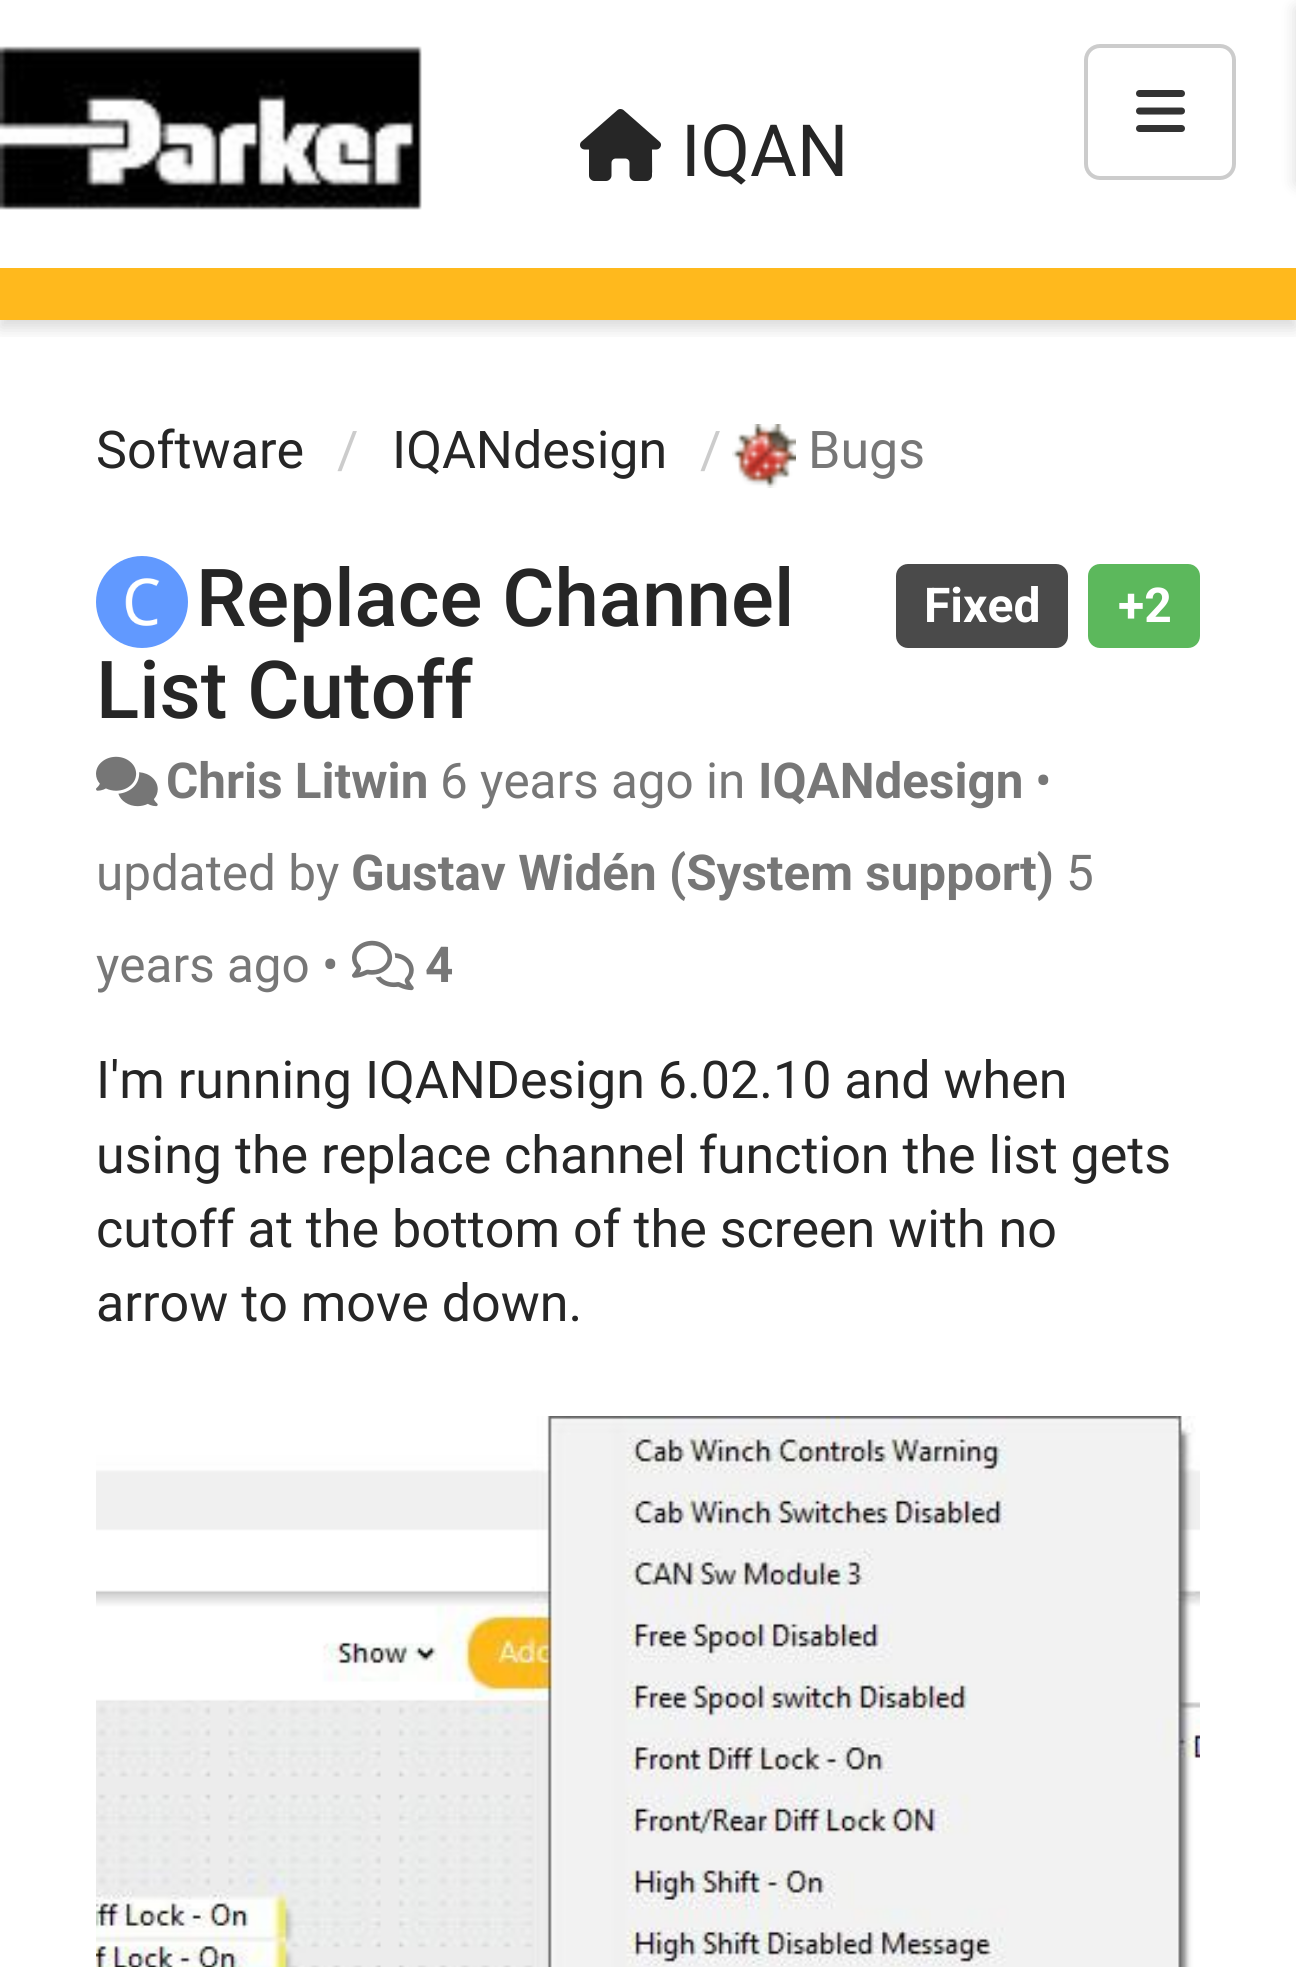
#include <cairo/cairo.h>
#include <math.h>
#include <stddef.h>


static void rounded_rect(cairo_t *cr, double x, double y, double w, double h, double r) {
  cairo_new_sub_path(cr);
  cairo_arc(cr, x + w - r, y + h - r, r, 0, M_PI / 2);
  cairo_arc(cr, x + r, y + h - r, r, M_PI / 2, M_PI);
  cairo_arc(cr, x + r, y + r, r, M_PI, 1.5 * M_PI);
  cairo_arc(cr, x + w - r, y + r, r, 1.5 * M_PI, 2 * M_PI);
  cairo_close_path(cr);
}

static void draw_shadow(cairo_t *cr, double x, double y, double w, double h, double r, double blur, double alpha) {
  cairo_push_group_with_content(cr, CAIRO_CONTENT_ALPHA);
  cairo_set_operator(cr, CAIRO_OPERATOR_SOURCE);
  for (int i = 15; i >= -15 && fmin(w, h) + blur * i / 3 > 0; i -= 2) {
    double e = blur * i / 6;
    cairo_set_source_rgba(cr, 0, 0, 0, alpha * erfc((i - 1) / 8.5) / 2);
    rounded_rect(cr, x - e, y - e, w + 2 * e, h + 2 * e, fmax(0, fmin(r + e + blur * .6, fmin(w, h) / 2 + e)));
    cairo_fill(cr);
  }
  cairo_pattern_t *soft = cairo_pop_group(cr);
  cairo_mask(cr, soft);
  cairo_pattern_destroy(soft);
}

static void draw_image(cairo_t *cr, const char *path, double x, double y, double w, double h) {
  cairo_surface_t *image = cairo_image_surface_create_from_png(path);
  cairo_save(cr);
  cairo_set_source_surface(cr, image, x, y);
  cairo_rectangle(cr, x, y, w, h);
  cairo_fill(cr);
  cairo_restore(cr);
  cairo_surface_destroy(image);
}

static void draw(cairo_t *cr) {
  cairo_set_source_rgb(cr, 1, 1, 1);
  cairo_paint(cr);
  cairo_save(cr);
  cairo_rectangle(cr, 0, 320, 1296, 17);
  cairo_clip(cr);
  cairo_set_source_rgb(cr, 0, 0, 0);
  draw_shadow(cr, 0, 8, 1296, 320, 0, 8, 0.15);
  cairo_restore(cr);
  cairo_set_source_rgb(cr, 1, 185 / 255.0, 29 / 255.0);
  cairo_rectangle(cr, 0, 268, 1296, 52);
  cairo_fill(cr);
  draw_image(cr, "images/1.png", 0, 46, 422, 164);
  draw_image(cr, "images/2.png", 580, 109, 81, 72);
  rounded_rect(cr, 1086, 46, 148, 132, 14);
  cairo_set_source_rgb(cr, 204 / 255.0, 204 / 255.0, 204 / 255.0);
  cairo_set_line_width(cr, 4);
  cairo_stroke(cr);
  draw_image(cr, "images/3.png", 1136, 90, 49, 42);
  cairo_set_source_rgb(cr, 0, 0, 0);
  draw_shadow(cr, 1296, 8, 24, 176, 0, 8, 0.15);
  draw_image(cr, "images/4.png", 732, 424, 64, 64);
  cairo_set_source_rgb(cr, 97 / 255.0, 153 / 255.0, 1);
  cairo_arc(cr, 142, 602, 46, 0, 2 * M_PI);
  cairo_fill(cr);
  draw_image(cr, "images/5.png", 125, 578, 35, 48);
  cairo_set_source_rgb(cr, 74 / 255.0, 74 / 255.0, 74 / 255.0);
  rounded_rect(cr, 896, 564, 172, 84, 12);
  cairo_fill(cr);
  cairo_set_source_rgb(cr, 92 / 255.0, 184 / 255.0, 92 / 255.0);
  rounded_rect(cr, 1088, 564, 112, 84, 12);
  cairo_fill(cr);
  draw_image(cr, "images/6.png", 96, 756, 62, 51);
  draw_image(cr, "images/7.png", 352, 940, 62, 51);
  draw_image(cr, "images/8.png", 96, 1416, 1104, 551);
  cairo_select_font_face(cr, "Roboto", CAIRO_FONT_SLANT_NORMAL, CAIRO_FONT_WEIGHT_NORMAL);
  cairo_set_font_size(cr, 72);
  cairo_set_source_rgb(cr, 38 / 255.0, 38 / 255.0, 38 / 255.0);
  cairo_move_to(cr, 681, 176);
  cairo_show_text(cr, "IQAN");
  cairo_set_font_size(cr, 52);
  cairo_move_to(cr, 96, 468);
  cairo_show_text(cr, "Software");
  cairo_set_source_rgb(cr, 204 / 255.0, 204 / 255.0, 204 / 255.0);
  cairo_move_to(cr, 337, 468);
  cairo_show_text(cr, "/");
  cairo_set_source_rgb(cr, 38 / 255.0, 38 / 255.0, 38 / 255.0);
  cairo_move_to(cr, 392, 468);
  cairo_show_text(cr, "IQANdesign");
  cairo_set_source_rgb(cr, 204 / 255.0, 204 / 255.0, 204 / 255.0);
  cairo_move_to(cr, 700, 468);
  cairo_show_text(cr, "/");
  cairo_set_source_rgb(cr, 119 / 255.0, 119 / 255.0, 119 / 255.0);
  cairo_move_to(cr, 808, 468);
  cairo_show_text(cr, "Bugs");
  cairo_select_font_face(cr, "Roboto Medium", CAIRO_FONT_SLANT_NORMAL, CAIRO_FONT_WEIGHT_NORMAL);
  cairo_set_font_size(cr, 80);
  cairo_set_source_rgb(cr, 38 / 255.0, 38 / 255.0, 38 / 255.0);
  cairo_move_to(cr, 196, 626);
  cairo_show_text(cr, "Replace Channel");
  cairo_move_to(cr, 96, 718);
  cairo_show_text(cr, "List Cutoff");
  cairo_select_font_face(cr, "Roboto", CAIRO_FONT_SLANT_NORMAL, CAIRO_FONT_WEIGHT_BOLD);
  cairo_set_font_size(cr, 48);
  cairo_set_source_rgb(cr, 1, 1, 1);
  cairo_move_to(cr, 924, 622);
  cairo_show_text(cr, "Fixed");
  cairo_move_to(cr, 1118, 622);
  cairo_show_text(cr, "+2");
  cairo_set_font_size(cr, 49.4);
  cairo_set_source_rgb(cr, 119 / 255.0, 119 / 255.0, 119 / 255.0);
  cairo_move_to(cr, 166, 798);
  cairo_show_text(cr, "Chris Litwin");
  cairo_select_font_face(cr, "Roboto", CAIRO_FONT_SLANT_NORMAL, CAIRO_FONT_WEIGHT_NORMAL);
  cairo_move_to(cr, 440, 798);
  cairo_show_text(cr, "6 years ago in");
  cairo_select_font_face(cr, "Roboto", CAIRO_FONT_SLANT_NORMAL, CAIRO_FONT_WEIGHT_BOLD);
  cairo_move_to(cr, 758, 798);
  cairo_show_text(cr, "IQANdesign");
  cairo_select_font_face(cr, "Roboto", CAIRO_FONT_SLANT_NORMAL, CAIRO_FONT_WEIGHT_NORMAL);
  cairo_move_to(cr, 1035, 798);
  cairo_show_text(cr, "•");
  cairo_move_to(cr, 96, 890);
  cairo_show_text(cr, "updated by");
  cairo_select_font_face(cr, "Roboto", CAIRO_FONT_SLANT_NORMAL, CAIRO_FONT_WEIGHT_BOLD);
  cairo_move_to(cr, 351, 890);
  cairo_show_text(cr, "Gustav Widén (System support)");
  cairo_select_font_face(cr, "Roboto", CAIRO_FONT_SLANT_NORMAL, CAIRO_FONT_WEIGHT_NORMAL);
  cairo_move_to(cr, 1066, 890);
  cairo_show_text(cr, "5");
  cairo_move_to(cr, 96, 982);
  cairo_show_text(cr, "years ago •");
  cairo_select_font_face(cr, "Roboto", CAIRO_FONT_SLANT_NORMAL, CAIRO_FONT_WEIGHT_BOLD);
  cairo_move_to(cr, 425, 982);
  cairo_show_text(cr, "4");
  cairo_select_font_face(cr, "Roboto", CAIRO_FONT_SLANT_NORMAL, CAIRO_FONT_WEIGHT_NORMAL);
  cairo_set_font_size(cr, 52);
  cairo_set_source_rgb(cr, 38 / 255.0, 38 / 255.0, 38 / 255.0);
  cairo_move_to(cr, 96, 1098);
  cairo_show_text(cr, "I'm running IQANDesign 6.02.10 and when");
  cairo_move_to(cr, 96, 1173);
  cairo_show_text(cr, "using the replace channel function the list gets");
  cairo_move_to(cr, 96, 1247);
  cairo_show_text(cr, "cutoff at the bottom of the screen with no");
  cairo_move_to(cr, 96, 1321);
  cairo_show_text(cr, "arrow to move down.");
}

int main(void) {
  cairo_surface_t *surface = cairo_image_surface_create(CAIRO_FORMAT_RGB24, 1296, 1967);
  cairo_t *cr = cairo_create(surface);
  cairo_font_options_t *options = cairo_font_options_create();
  cairo_font_options_set_hint_metrics(options, CAIRO_HINT_METRICS_OFF);
  cairo_font_options_set_hint_style(options, CAIRO_HINT_STYLE_NONE);
  cairo_set_font_options(cr, options);
  cairo_set_miter_limit(cr, 4);
  draw(cr);
  cairo_surface_write_to_png(surface, "out.png");
  cairo_font_options_destroy(options);
  cairo_destroy(cr);
  cairo_surface_destroy(surface);
  return 0;
}
